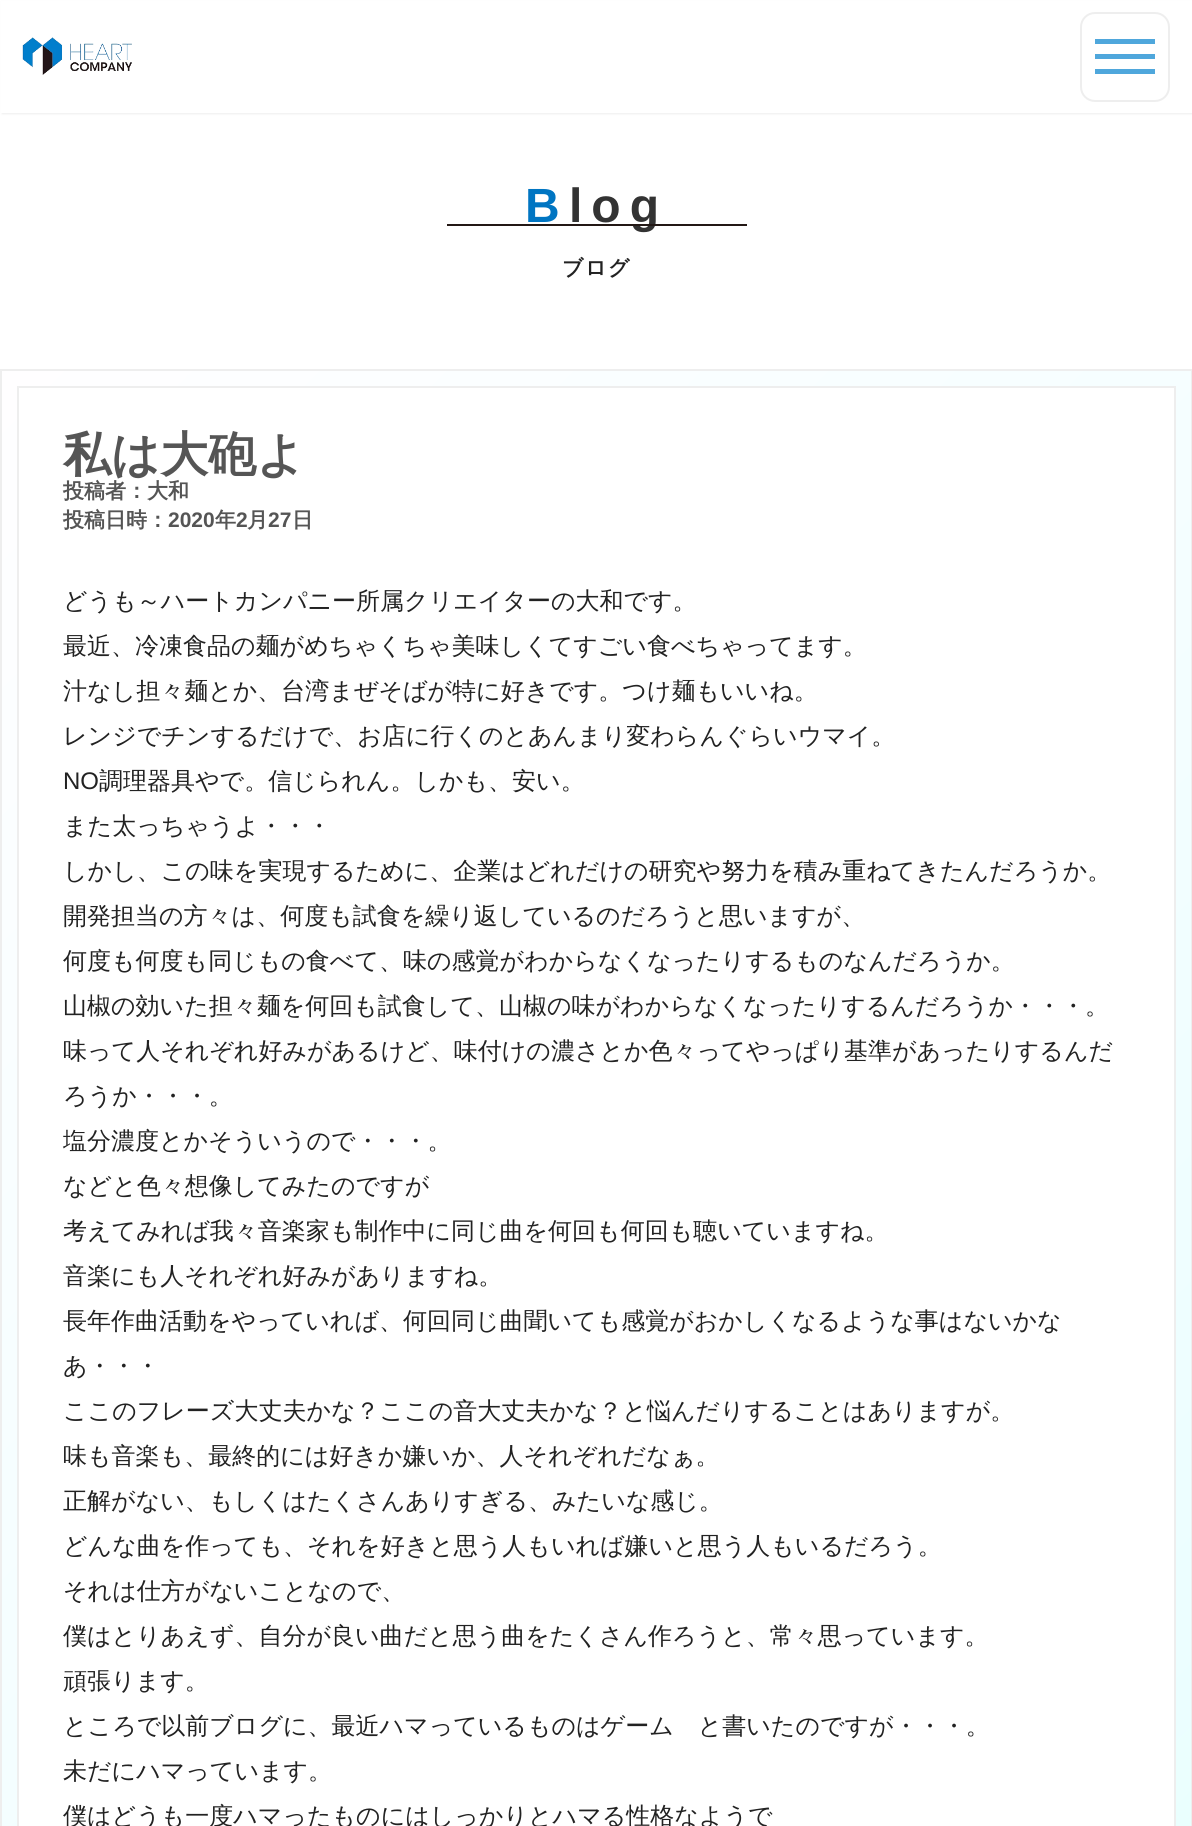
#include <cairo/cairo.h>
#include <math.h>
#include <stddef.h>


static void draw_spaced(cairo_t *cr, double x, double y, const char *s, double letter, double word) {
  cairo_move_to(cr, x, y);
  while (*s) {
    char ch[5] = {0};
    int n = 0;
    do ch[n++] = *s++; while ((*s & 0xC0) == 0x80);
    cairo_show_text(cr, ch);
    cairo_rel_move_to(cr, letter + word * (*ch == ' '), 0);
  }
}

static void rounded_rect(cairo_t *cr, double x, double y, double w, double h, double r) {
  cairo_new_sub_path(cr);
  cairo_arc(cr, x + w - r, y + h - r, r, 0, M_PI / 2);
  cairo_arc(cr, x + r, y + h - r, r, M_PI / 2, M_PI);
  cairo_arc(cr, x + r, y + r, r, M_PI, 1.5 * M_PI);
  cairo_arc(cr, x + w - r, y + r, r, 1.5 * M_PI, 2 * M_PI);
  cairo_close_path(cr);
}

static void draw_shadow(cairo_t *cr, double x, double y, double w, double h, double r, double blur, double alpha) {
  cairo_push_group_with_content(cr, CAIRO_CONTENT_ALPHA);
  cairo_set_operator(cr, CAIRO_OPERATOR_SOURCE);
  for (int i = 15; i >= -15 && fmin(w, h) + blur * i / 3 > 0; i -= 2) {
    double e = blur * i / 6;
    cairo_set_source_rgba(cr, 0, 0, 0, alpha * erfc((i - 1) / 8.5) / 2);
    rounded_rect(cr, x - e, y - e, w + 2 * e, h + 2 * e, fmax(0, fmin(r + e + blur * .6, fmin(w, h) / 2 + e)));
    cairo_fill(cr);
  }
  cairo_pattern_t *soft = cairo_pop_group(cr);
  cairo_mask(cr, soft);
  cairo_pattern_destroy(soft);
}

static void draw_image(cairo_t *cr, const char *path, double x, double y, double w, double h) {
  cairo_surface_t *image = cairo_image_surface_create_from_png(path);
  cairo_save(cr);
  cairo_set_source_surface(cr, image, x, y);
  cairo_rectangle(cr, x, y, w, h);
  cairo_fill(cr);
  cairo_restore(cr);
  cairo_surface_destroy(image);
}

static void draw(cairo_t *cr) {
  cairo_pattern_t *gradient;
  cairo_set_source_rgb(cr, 1, 1, 1);
  cairo_paint(cr);
  cairo_set_source_rgb(cr, 238 / 255.0, 238 / 255.0, 238 / 255.0);
  draw_shadow(cr, 2, 2, 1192, 112, 0, 1, 1);
  cairo_set_source_rgb(cr, 1, 1, 1);
  cairo_rectangle(cr, 1, 1, 1191, 112);
  cairo_fill(cr);
  draw_image(cr, "images/1.png", 22, 37, 110, 38);
  rounded_rect(cr, 1081, 13, 88, 88, 14);
  cairo_set_source_rgb(cr, 238 / 255.0, 238 / 255.0, 238 / 255.0);
  cairo_stroke(cr);
  cairo_set_source_rgb(cr, 79 / 255.0, 167 / 255.0, 220 / 255.0);
  cairo_rectangle(cr, 1095, 54, 60, 5);
  cairo_fill(cr);
  cairo_rectangle(cr, 1095, 39, 60, 5);
  cairo_fill(cr);
  cairo_rectangle(cr, 1095, 69, 60, 5);
  cairo_fill(cr);
  gradient = cairo_pattern_create_linear(-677, 1049, 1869, 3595);
  cairo_pattern_add_color_stop_rgba(gradient, 0, 1, 254 / 255.0, 1, 1);
  cairo_pattern_add_color_stop_rgba(gradient, 1, 215 / 255.0, 1, 254 / 255.0, 1);
  cairo_set_source(cr, gradient);
  cairo_pattern_destroy(gradient);
  cairo_rectangle(cr, 2, 371, 1189, 1455);
  cairo_fill(cr);
  cairo_rectangle(cr, 1, 370, 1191, 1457);
  cairo_set_source_rgb(cr, 238 / 255.0, 238 / 255.0, 238 / 255.0);
  cairo_stroke(cr);
  cairo_set_source_rgb(cr, 1, 1, 1);
  cairo_rectangle(cr, 18, 387, 1157, 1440);
  cairo_fill_preserve(cr);
  cairo_set_source_rgb(cr, 238 / 255.0, 238 / 255.0, 238 / 255.0);
  cairo_stroke(cr);
  cairo_select_font_face(cr, "Liberation Sans", CAIRO_FONT_SLANT_NORMAL, CAIRO_FONT_WEIGHT_BOLD);
  cairo_set_font_size(cr, 48);
  cairo_set_source_rgb(cr, 0, 117 / 255.0, 194 / 255.0);
  draw_spaced(cr, 525, 222, "B", 9, 0);
  cairo_set_source_rgb(cr, 51 / 255.0, 51 / 255.0, 51 / 255.0);
  draw_spaced(cr, 569, 222, "log", 9, 0);
  cairo_set_source_rgb(cr, 35 / 255.0, 24 / 255.0, 21 / 255.0);
  cairo_rectangle(cr, 447, 224, 300, 2);
  cairo_fill(cr);
  cairo_select_font_face(cr, "WenQuanYi Zen Hei", CAIRO_FONT_SLANT_NORMAL, CAIRO_FONT_WEIGHT_BOLD);
  cairo_set_font_size(cr, 21);
  cairo_set_source_rgb(cr, 34 / 255.0, 34 / 255.0, 34 / 255.0);
  draw_spaced(cr, 562, 275, "ブログ", 1.5, 0);
  cairo_set_font_size(cr, 48);
  cairo_set_source_rgb(cr, 85 / 255.0, 85 / 255.0, 85 / 255.0);
  cairo_move_to(cr, 63, 471);
  cairo_show_text(cr, "私は大砲よ");
  cairo_set_font_size(cr, 21);
  cairo_move_to(cr, 63, 498);
  cairo_show_text(cr, "投稿者：大和");
  cairo_move_to(cr, 63, 527);
  cairo_show_text(cr, "投稿日時：");
  cairo_select_font_face(cr, "Liberation Sans", CAIRO_FONT_SLANT_NORMAL, CAIRO_FONT_WEIGHT_BOLD);
  cairo_move_to(cr, 168, 527);
  cairo_show_text(cr, "2020");
  cairo_select_font_face(cr, "WenQuanYi Zen Hei", CAIRO_FONT_SLANT_NORMAL, CAIRO_FONT_WEIGHT_BOLD);
  cairo_move_to(cr, 215, 527);
  cairo_show_text(cr, "年");
  cairo_select_font_face(cr, "Liberation Sans", CAIRO_FONT_SLANT_NORMAL, CAIRO_FONT_WEIGHT_BOLD);
  cairo_move_to(cr, 236, 527);
  cairo_show_text(cr, "2");
  cairo_select_font_face(cr, "WenQuanYi Zen Hei", CAIRO_FONT_SLANT_NORMAL, CAIRO_FONT_WEIGHT_BOLD);
  cairo_move_to(cr, 247, 527);
  cairo_show_text(cr, "月");
  cairo_select_font_face(cr, "Liberation Sans", CAIRO_FONT_SLANT_NORMAL, CAIRO_FONT_WEIGHT_BOLD);
  cairo_move_to(cr, 268, 527);
  cairo_show_text(cr, "27");
  cairo_select_font_face(cr, "WenQuanYi Zen Hei", CAIRO_FONT_SLANT_NORMAL, CAIRO_FONT_WEIGHT_BOLD);
  cairo_move_to(cr, 292, 527);
  cairo_show_text(cr, "日");
  cairo_select_font_face(cr, "WenQuanYi Zen Hei Medium", CAIRO_FONT_SLANT_NORMAL, CAIRO_FONT_WEIGHT_NORMAL);
  cairo_set_font_size(cr, 24);
  cairo_set_source_rgb(cr, 34 / 255.0, 34 / 255.0, 34 / 255.0);
  cairo_move_to(cr, 63, 609);
  cairo_show_text(cr, "どうも～ハートカンパニー所属クリエイターの大和です。");
  cairo_move_to(cr, 63, 654);
  cairo_show_text(cr, "最近、冷凍食品の麺がめちゃくちゃ美味しくてすごい食べちゃってます。");
  cairo_move_to(cr, 63, 699);
  cairo_show_text(cr, "汁なし担々麺とか、台湾まぜそばが特に好きです。つけ麺もいいね。");
  cairo_move_to(cr, 63, 744);
  cairo_show_text(cr, "レンジでチンするだけで、お店に行くのとあんまり変わらんぐらいウマイ。");
  cairo_select_font_face(cr, "Liberation Sans", CAIRO_FONT_SLANT_NORMAL, CAIRO_FONT_WEIGHT_NORMAL);
  cairo_move_to(cr, 63, 789);
  cairo_show_text(cr, "NO");
  cairo_select_font_face(cr, "WenQuanYi Zen Hei Medium", CAIRO_FONT_SLANT_NORMAL, CAIRO_FONT_WEIGHT_NORMAL);
  cairo_move_to(cr, 99, 789);
  cairo_show_text(cr, "調理器具やで。信じられん。しかも、安い。");
  cairo_move_to(cr, 63, 834);
  cairo_show_text(cr, "また太っちゃうよ・・・");
  cairo_move_to(cr, 63, 879);
  cairo_show_text(cr, "しかし、この味を実現するために、企業はどれだけの研究や努力を積み重ねてきたんだろうか。");
  cairo_move_to(cr, 63, 924);
  cairo_show_text(cr, "開発担当の方々は、何度も試食を繰り返しているのだろうと思いますが、");
  cairo_move_to(cr, 63, 969);
  cairo_show_text(cr, "何度も何度も同じもの食べて、味の感覚がわからなくなったりするものなんだろうか。");
  cairo_move_to(cr, 63, 1014);
  cairo_show_text(cr, "山椒の効いた担々麺を何回も試食して、山椒の味がわからなくなったりするんだろうか・・・。");
  cairo_move_to(cr, 63, 1059);
  cairo_show_text(cr, "味って人それぞれ好みがあるけど、味付けの濃さとか色々ってやっぱり基準があったりするんだ");
  cairo_move_to(cr, 63, 1104);
  cairo_show_text(cr, "ろうか・・・。");
  cairo_move_to(cr, 63, 1149);
  cairo_show_text(cr, "塩分濃度とかそういうので・・・。");
  cairo_move_to(cr, 63, 1194);
  cairo_show_text(cr, "などと色々想像してみたのですが");
  cairo_move_to(cr, 63, 1239);
  cairo_show_text(cr, "考えてみれば我々音楽家も制作中に同じ曲を何回も何回も聴いていますね。");
  cairo_move_to(cr, 63, 1284);
  cairo_show_text(cr, "音楽にも人それぞれ好みがありますね。");
  cairo_move_to(cr, 63, 1329);
  cairo_show_text(cr, "長年作曲活動をやっていれば、何回同じ曲聞いても感覚がおかしくなるような事はないかな");
  cairo_move_to(cr, 63, 1374);
  cairo_show_text(cr, "あ・・・");
  cairo_move_to(cr, 63, 1419);
  cairo_show_text(cr, "ここのフレーズ大丈夫かな？ここの音大丈夫かな？と悩んだりすることはありますが。");
  cairo_move_to(cr, 63, 1464);
  cairo_show_text(cr, "味も音楽も、最終的には好きか嫌いか、人それぞれだなぁ。");
  cairo_move_to(cr, 63, 1509);
  cairo_show_text(cr, "正解がない、もしくはたくさんありすぎる、みたいな感じ。");
  cairo_move_to(cr, 63, 1554);
  cairo_show_text(cr, "どんな曲を作っても、それを好きと思う人もいれば嫌いと思う人もいるだろう。");
  cairo_move_to(cr, 63, 1599);
  cairo_show_text(cr, "それは仕方がないことなので、");
  cairo_move_to(cr, 63, 1644);
  cairo_show_text(cr, "僕はとりあえず、自分が良い曲だと思う曲をたくさん作ろうと、常々思っています。");
  cairo_move_to(cr, 63, 1689);
  cairo_show_text(cr, "頑張ります。");
  cairo_move_to(cr, 63, 1734);
  cairo_show_text(cr, "ところで以前ブログに、最近ハマっているものはゲーム　と書いたのですが・・・。");
  cairo_move_to(cr, 63, 1779);
  cairo_show_text(cr, "未だにハマっています。");
  cairo_move_to(cr, 63, 1824);
  cairo_show_text(cr, "僕はどうも一度ハマったものにはしっかりとハマる性格なようで");
}

int main(void) {
  cairo_surface_t *surface = cairo_image_surface_create(CAIRO_FORMAT_RGB24, 1192, 1826);
  cairo_t *cr = cairo_create(surface);
  cairo_font_options_t *options = cairo_font_options_create();
  cairo_font_options_set_hint_metrics(options, CAIRO_HINT_METRICS_OFF);
  cairo_font_options_set_hint_style(options, CAIRO_HINT_STYLE_NONE);
  cairo_set_font_options(cr, options);
  cairo_set_miter_limit(cr, 4);
  draw(cr);
  cairo_surface_write_to_png(surface, "out.png");
  cairo_font_options_destroy(options);
  cairo_destroy(cr);
  cairo_surface_destroy(surface);
  return 0;
}
